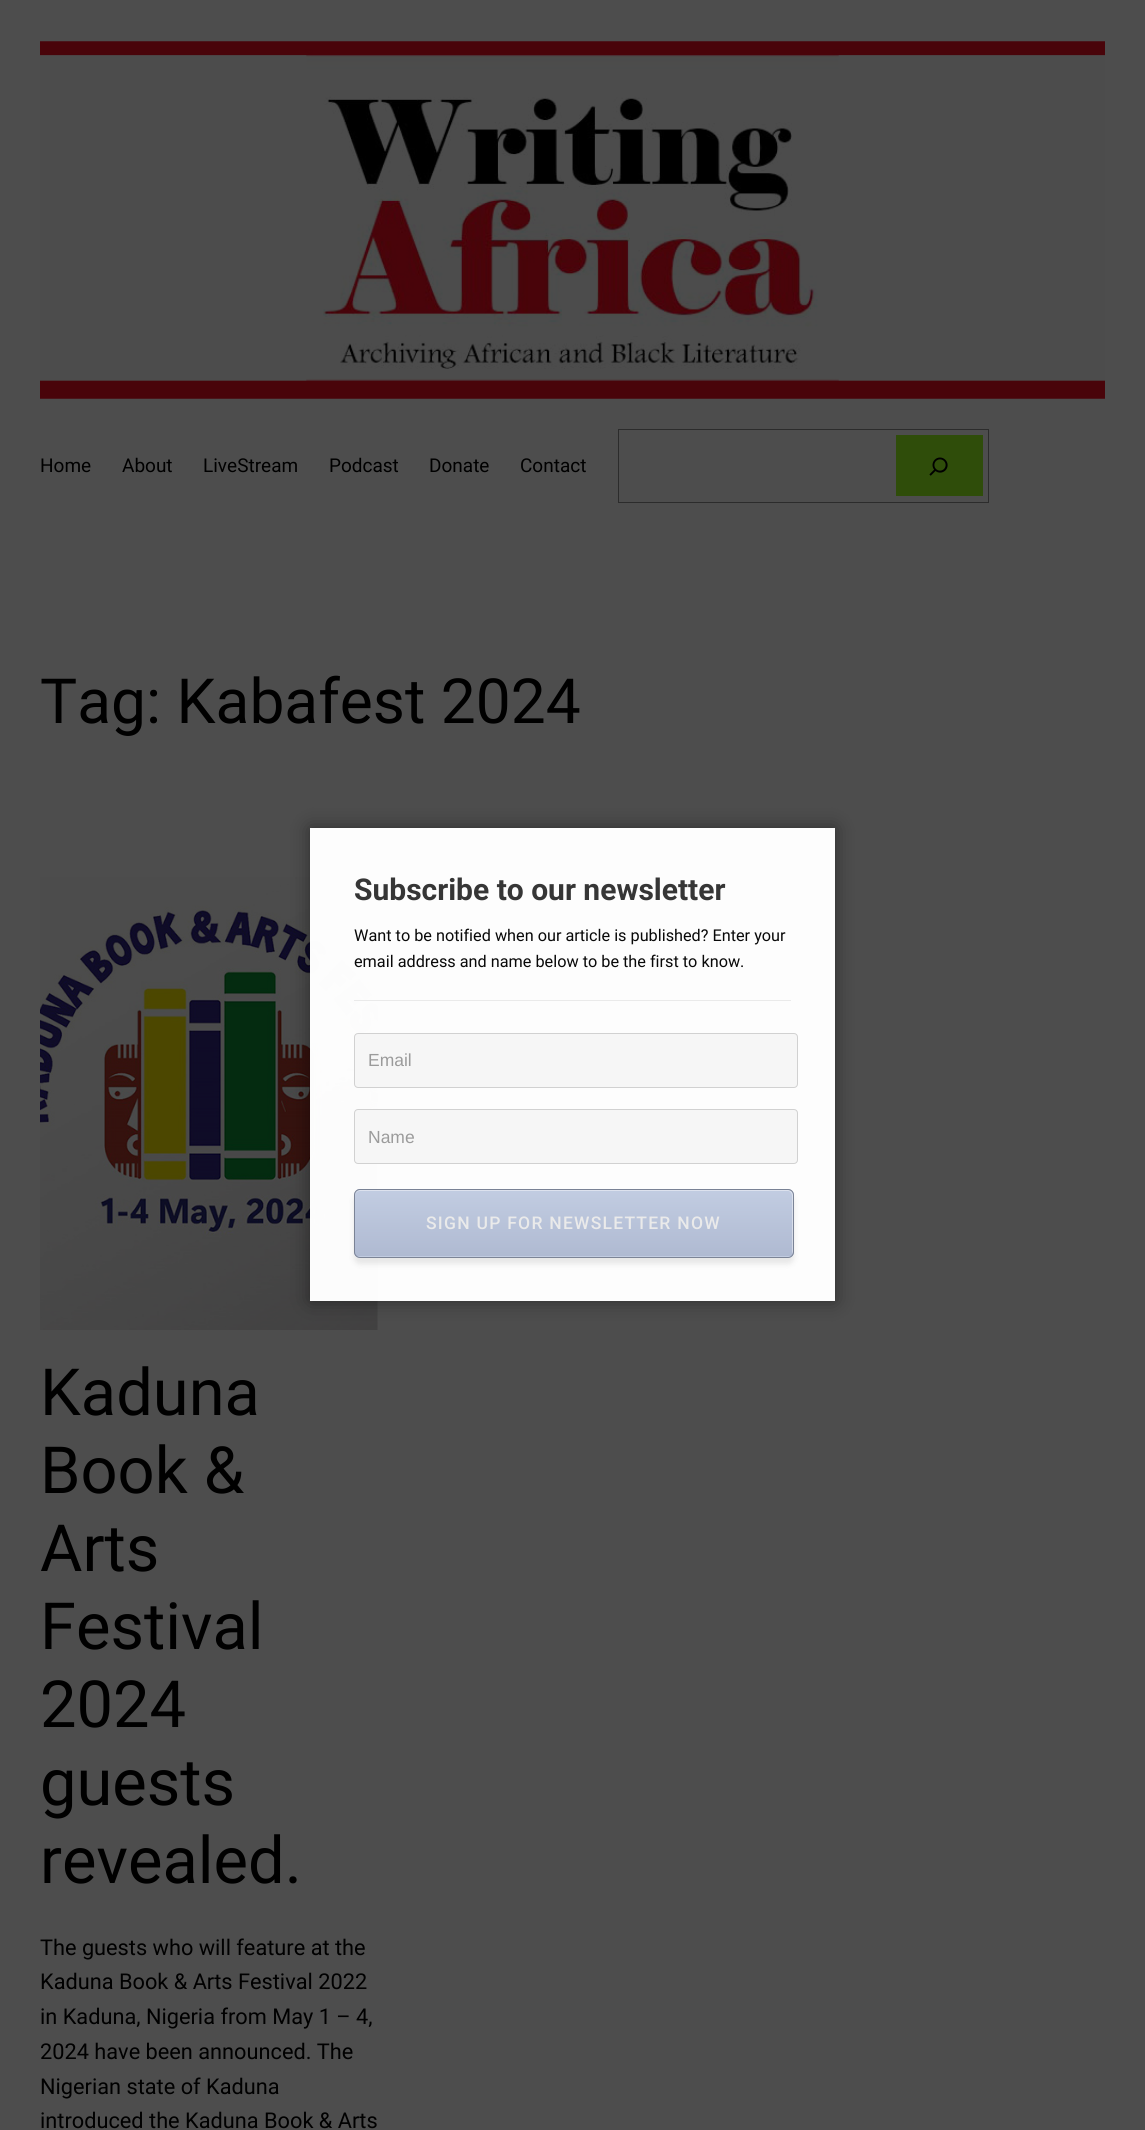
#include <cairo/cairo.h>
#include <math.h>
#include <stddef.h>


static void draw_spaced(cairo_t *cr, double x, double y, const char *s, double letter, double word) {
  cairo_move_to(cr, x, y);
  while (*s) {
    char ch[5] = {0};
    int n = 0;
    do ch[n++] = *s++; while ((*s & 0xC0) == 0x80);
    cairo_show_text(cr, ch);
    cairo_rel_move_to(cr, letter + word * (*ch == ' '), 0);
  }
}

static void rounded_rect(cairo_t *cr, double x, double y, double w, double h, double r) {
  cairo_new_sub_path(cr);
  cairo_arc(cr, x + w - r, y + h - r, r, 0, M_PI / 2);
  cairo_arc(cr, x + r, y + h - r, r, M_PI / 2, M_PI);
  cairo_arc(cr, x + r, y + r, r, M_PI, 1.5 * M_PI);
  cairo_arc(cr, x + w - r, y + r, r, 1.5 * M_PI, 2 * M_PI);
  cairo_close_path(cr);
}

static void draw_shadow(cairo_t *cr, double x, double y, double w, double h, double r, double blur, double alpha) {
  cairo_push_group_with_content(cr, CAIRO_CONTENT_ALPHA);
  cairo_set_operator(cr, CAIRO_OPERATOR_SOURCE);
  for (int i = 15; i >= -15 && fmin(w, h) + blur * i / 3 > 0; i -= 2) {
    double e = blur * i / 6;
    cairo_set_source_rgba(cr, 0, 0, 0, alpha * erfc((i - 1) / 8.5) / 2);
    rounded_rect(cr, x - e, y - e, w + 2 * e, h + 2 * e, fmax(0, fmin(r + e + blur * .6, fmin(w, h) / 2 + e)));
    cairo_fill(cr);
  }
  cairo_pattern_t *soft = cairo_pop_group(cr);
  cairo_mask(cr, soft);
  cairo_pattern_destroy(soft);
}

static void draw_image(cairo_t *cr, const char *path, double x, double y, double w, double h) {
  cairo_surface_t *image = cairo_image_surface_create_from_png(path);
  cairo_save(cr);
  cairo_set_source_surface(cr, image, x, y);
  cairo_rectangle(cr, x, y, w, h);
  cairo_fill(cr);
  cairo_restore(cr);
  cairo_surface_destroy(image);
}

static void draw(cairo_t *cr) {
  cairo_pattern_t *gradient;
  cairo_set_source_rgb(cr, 77 / 255.0, 77 / 255.0, 77 / 255.0);
  cairo_paint(cr);
  draw_image(cr, "images/1.png", 40, 41, 1065, 358);
  cairo_rectangle(cr, 618.5, 429.5, 370, 73);
  cairo_set_source_rgb(cr, 44 / 255.0, 44 / 255.0, 44 / 255.0);
  cairo_set_line_width(cr, 1);
  cairo_stroke(cr);
  cairo_set_source_rgb(cr, 47 / 255.0, 77 / 255.0, 10 / 255.0);
  cairo_rectangle(cr, 896, 435, 87, 61);
  cairo_fill(cr);
  draw_image(cr, "images/2.png", 929, 457, 19, 19);
  draw_image(cr, "images/3.png", 40, 877, 338, 453);
  cairo_save(cr);
  cairo_set_fill_rule(cr, CAIRO_FILL_RULE_EVEN_ODD);
  cairo_new_path(cr);
  cairo_move_to(cr, 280, 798);
  cairo_line_to(cr, 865, 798);
  cairo_line_to(cr, 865, 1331);
  cairo_line_to(cr, 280, 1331);
  cairo_close_path(cr);
  cairo_move_to(cr, 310, 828);
  cairo_line_to(cr, 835, 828);
  cairo_line_to(cr, 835, 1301);
  cairo_line_to(cr, 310, 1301);
  cairo_close_path(cr);
  cairo_clip(cr);
  cairo_set_source_rgb(cr, 0, 0, 0);
  draw_shadow(cr, 310, 828, 525, 473, 0, 9.5, 0.44);
  cairo_restore(cr);
  cairo_set_source_rgba(cr, 1, 1, 1, 0.88);
  cairo_rectangle(cr, 310, 828, 525, 473);
  cairo_fill(cr);
  cairo_rectangle(cr, 316.5, 834.5, 512, 460);
  cairo_set_line_width(cr, 13);
  cairo_stroke(cr);
  cairo_rectangle(cr, 323, 841, 499, 447);
  cairo_fill(cr);
  cairo_set_source_rgb(cr, 234 / 255.0, 234 / 255.0, 234 / 255.0);
  cairo_rectangle(cr, 354, 1000, 437, 1);
  cairo_fill(cr);
  cairo_set_source_rgb(cr, 246 / 255.0, 246 / 255.0, 246 / 255.0);
  rounded_rect(cr, 354.5, 1033.5, 443, 54, 3.5);
  cairo_fill_preserve(cr);
  cairo_set_source_rgb(cr, 209 / 255.0, 209 / 255.0, 209 / 255.0);
  cairo_set_line_width(cr, 1);
  cairo_stroke(cr);
  cairo_set_source_rgb(cr, 246 / 255.0, 246 / 255.0, 246 / 255.0);
  rounded_rect(cr, 354.5, 1109.5, 443, 54, 3.5);
  cairo_fill_preserve(cr);
  cairo_set_source_rgb(cr, 209 / 255.0, 209 / 255.0, 209 / 255.0);
  cairo_stroke(cr);
  cairo_save(cr);
  cairo_set_fill_rule(cr, CAIRO_FILL_RULE_EVEN_ODD);
  cairo_new_path(cr);
  cairo_move_to(cr, 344, 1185);
  cairo_line_to(cr, 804, 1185);
  cairo_line_to(cr, 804, 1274);
  cairo_line_to(cr, 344, 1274);
  cairo_close_path(cr);
  cairo_move_to(cr, 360, 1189);
  cairo_line_to(cr, 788, 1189);
  cairo_curve_to(cr, 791.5, 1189, 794, 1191.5, 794, 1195);
  cairo_line_to(cr, 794, 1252);
  cairo_curve_to(cr, 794, 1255.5, 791.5, 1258, 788, 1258);
  cairo_line_to(cr, 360, 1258);
  cairo_curve_to(cr, 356.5, 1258, 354, 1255.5, 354, 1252);
  cairo_line_to(cr, 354, 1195);
  cairo_curve_to(cr, 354, 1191.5, 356.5, 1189, 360, 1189);
  cairo_close_path(cr);
  cairo_clip(cr);
  cairo_set_source_rgb(cr, 0, 0, 0);
  draw_shadow(cr, 354, 1195, 440, 69, 6, 3, 0.09);
  cairo_restore(cr);
  cairo_save(cr);
  rounded_rect(cr, 354, 1189, 440, 69, 6);
  cairo_clip(cr);
  gradient = cairo_pattern_create_linear(355, 1124, 355, 1190);
  cairo_pattern_add_color_stop_rgba(gradient, 0, 193 / 255.0, 204 / 255.0, 225 / 255.0, 1);
  cairo_pattern_add_color_stop_rgba(gradient, 1, 174 / 255.0, 185 / 255.0, 209 / 255.0, 1);
  cairo_set_source(cr, gradient);
  cairo_pattern_destroy(gradient);
  cairo_rectangle(cr, 354, 1189, 440, 1);
  cairo_fill(cr);
  gradient = cairo_pattern_create_linear(355, 1190, 355, 1256);
  cairo_pattern_add_color_stop_rgba(gradient, 0, 185 / 255.0, 197 / 255.0, 221 / 255.0, 0.88);
  cairo_pattern_add_color_stop_rgba(gradient, 1, 164 / 255.0, 176 / 255.0, 203 / 255.0, 0.88);
  cairo_set_source(cr, gradient);
  cairo_pattern_destroy(gradient);
  cairo_rectangle(cr, 354, 1190, 440, 66);
  cairo_fill(cr);
  gradient = cairo_pattern_create_linear(355, 1256, 355, 1323);
  cairo_pattern_add_color_stop_rgba(gradient, 0, 185 / 255.0, 197 / 255.0, 221 / 255.0, 0.88);
  cairo_pattern_add_color_stop_rgba(gradient, 1, 164 / 255.0, 176 / 255.0, 203 / 255.0, 0.88);
  cairo_set_source(cr, gradient);
  cairo_pattern_destroy(gradient);
  cairo_rectangle(cr, 354, 1256, 440, 2);
  cairo_fill(cr);
  cairo_restore(cr);
  cairo_set_source_rgba(cr, 1, 1, 1, 0.44);
  cairo_new_path(cr);
  cairo_move_to(cr, 360, 1191);
  cairo_line_to(cr, 788, 1191);
  cairo_curve_to(cr, 790, 1191, 792, 1193, 792, 1196);
  cairo_line_to(cr, 792, 1252);
  cairo_line_to(cr, 792, 1255);
  cairo_curve_to(cr, 792, 1254, 793, 1252, 793, 1251);
  cairo_line_to(cr, 793, 1195);
  cairo_curve_to(cr, 793, 1192, 791, 1190, 788, 1190);
  cairo_line_to(cr, 360, 1190);
  cairo_curve_to(cr, 357, 1190, 355, 1192, 355, 1195);
  cairo_line_to(cr, 355, 1196);
  cairo_curve_to(cr, 355, 1193, 357, 1191, 360, 1191);
  cairo_close_path(cr);
  cairo_fill(cr);
  rounded_rect(cr, 354.5, 1189.5, 439, 68, 5.5);
  cairo_set_source_rgba(cr, 115 / 255.0, 123 / 255.0, 141 / 255.0, 0.88);
  cairo_stroke(cr);
  cairo_select_font_face(cr, "Roboto", CAIRO_FONT_SLANT_NORMAL, CAIRO_FONT_WEIGHT_NORMAL);
  cairo_set_font_size(cr, 19);
  cairo_set_source_rgb(cr, 0, 0, 0);
  cairo_move_to(cr, 40, 472);
  cairo_show_text(cr, "Home");
  cairo_move_to(cr, 122, 472);
  cairo_show_text(cr, "About");
  cairo_move_to(cr, 203, 472);
  cairo_show_text(cr, "LiveStream");
  cairo_move_to(cr, 329, 472);
  cairo_show_text(cr, "Podcast");
  cairo_move_to(cr, 429, 472);
  cairo_show_text(cr, "Donate");
  cairo_move_to(cr, 520, 472);
  cairo_show_text(cr, "Contact");
  cairo_set_font_size(cr, 62.25);
  cairo_move_to(cr, 40, 723);
  cairo_show_text(cr, "Tag: Kabafest 2024");
  cairo_set_font_size(cr, 65);
  cairo_move_to(cr, 40, 1415);
  cairo_show_text(cr, "Kaduna");
  cairo_move_to(cr, 40, 1493);
  cairo_show_text(cr, "Book &");
  cairo_move_to(cr, 40, 1571);
  cairo_show_text(cr, "Arts");
  cairo_move_to(cr, 40, 1649);
  cairo_show_text(cr, "Festival");
  cairo_move_to(cr, 40, 1727);
  cairo_show_text(cr, "2024");
  cairo_move_to(cr, 40, 1805);
  cairo_show_text(cr, "guests");
  cairo_move_to(cr, 40, 1883);
  cairo_show_text(cr, "revealed.");
  cairo_set_font_size(cr, 21.75);
  cairo_move_to(cr, 40, 1955);
  cairo_show_text(cr, "The guests who will feature at the");
  cairo_move_to(cr, 40, 1989);
  cairo_show_text(cr, "Kaduna Book & Arts Festival 2022");
  cairo_move_to(cr, 40, 2024);
  cairo_show_text(cr, "in Kaduna, Nigeria from May 1 – 4,");
  cairo_move_to(cr, 40, 2059);
  cairo_show_text(cr, "2024 have been announced. The");
  cairo_move_to(cr, 40, 2094);
  cairo_show_text(cr, "Nigerian state of Kaduna");
  cairo_move_to(cr, 40, 2128);
  cairo_show_text(cr, "introduced the Kaduna Book & Arts");
  cairo_select_font_face(cr, "Roboto", CAIRO_FONT_SLANT_NORMAL, CAIRO_FONT_WEIGHT_BOLD);
  cairo_set_font_size(cr, 30);
  cairo_set_source_rgb(cr, 54 / 255.0, 54 / 255.0, 54 / 255.0);
  cairo_move_to(cr, 354, 900);
  cairo_show_text(cr, "Subscribe to our newsletter");
  cairo_select_font_face(cr, "Roboto", CAIRO_FONT_SLANT_NORMAL, CAIRO_FONT_WEIGHT_NORMAL);
  cairo_set_font_size(cr, 16.25);
  cairo_set_source_rgb(cr, 9 / 255.0, 9 / 255.0, 9 / 255.0);
  cairo_move_to(cr, 354, 941);
  cairo_show_text(cr, "Want to be notified when our article is published? Enter your");
  cairo_move_to(cr, 354, 967);
  cairo_show_text(cr, "email address and name below to be the first to know.");
  cairo_select_font_face(cr, "Liberation Sans", CAIRO_FONT_SLANT_NORMAL, CAIRO_FONT_WEIGHT_NORMAL);
  cairo_set_font_size(cr, 17.5);
  cairo_set_source_rgb(cr, 155 / 255.0, 155 / 255.0, 155 / 255.0);
  cairo_move_to(cr, 368, 1066);
  cairo_show_text(cr, "Email");
  cairo_move_to(cr, 368, 1143);
  cairo_show_text(cr, "Name");
  cairo_select_font_face(cr, "Roboto Medium", CAIRO_FONT_SLANT_NORMAL, CAIRO_FONT_WEIGHT_NORMAL);
  cairo_set_source_rgb(cr, 234 / 255.0, 234 / 255.0, 234 / 255.0);
  draw_spaced(cr, 426, 1229, "SIGN UP FOR NEWSLETTER NOW", 1.25, 0);
}

int main(void) {
  cairo_surface_t *surface = cairo_image_surface_create(CAIRO_FORMAT_RGB24, 1145, 2130);
  cairo_t *cr = cairo_create(surface);
  cairo_font_options_t *options = cairo_font_options_create();
  cairo_font_options_set_hint_metrics(options, CAIRO_HINT_METRICS_OFF);
  cairo_font_options_set_hint_style(options, CAIRO_HINT_STYLE_NONE);
  cairo_set_font_options(cr, options);
  cairo_set_miter_limit(cr, 4);
  draw(cr);
  cairo_surface_write_to_png(surface, "out.png");
  cairo_font_options_destroy(options);
  cairo_destroy(cr);
  cairo_surface_destroy(surface);
  return 0;
}
